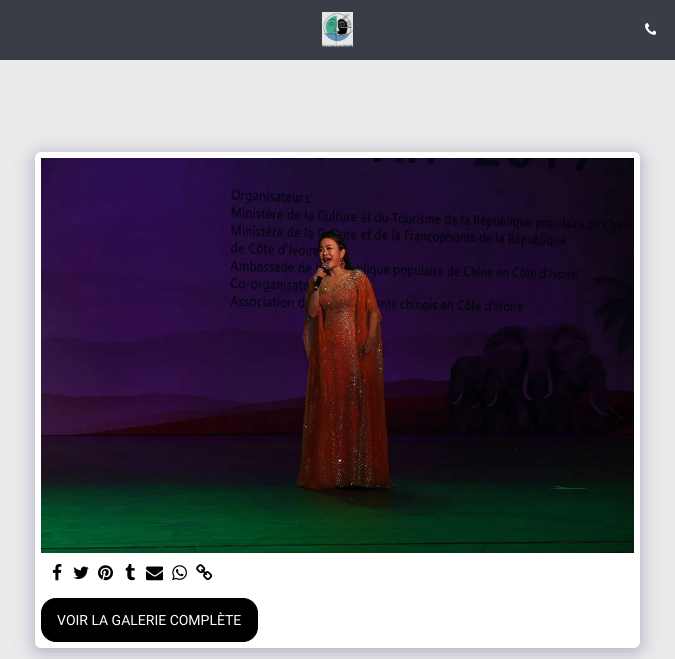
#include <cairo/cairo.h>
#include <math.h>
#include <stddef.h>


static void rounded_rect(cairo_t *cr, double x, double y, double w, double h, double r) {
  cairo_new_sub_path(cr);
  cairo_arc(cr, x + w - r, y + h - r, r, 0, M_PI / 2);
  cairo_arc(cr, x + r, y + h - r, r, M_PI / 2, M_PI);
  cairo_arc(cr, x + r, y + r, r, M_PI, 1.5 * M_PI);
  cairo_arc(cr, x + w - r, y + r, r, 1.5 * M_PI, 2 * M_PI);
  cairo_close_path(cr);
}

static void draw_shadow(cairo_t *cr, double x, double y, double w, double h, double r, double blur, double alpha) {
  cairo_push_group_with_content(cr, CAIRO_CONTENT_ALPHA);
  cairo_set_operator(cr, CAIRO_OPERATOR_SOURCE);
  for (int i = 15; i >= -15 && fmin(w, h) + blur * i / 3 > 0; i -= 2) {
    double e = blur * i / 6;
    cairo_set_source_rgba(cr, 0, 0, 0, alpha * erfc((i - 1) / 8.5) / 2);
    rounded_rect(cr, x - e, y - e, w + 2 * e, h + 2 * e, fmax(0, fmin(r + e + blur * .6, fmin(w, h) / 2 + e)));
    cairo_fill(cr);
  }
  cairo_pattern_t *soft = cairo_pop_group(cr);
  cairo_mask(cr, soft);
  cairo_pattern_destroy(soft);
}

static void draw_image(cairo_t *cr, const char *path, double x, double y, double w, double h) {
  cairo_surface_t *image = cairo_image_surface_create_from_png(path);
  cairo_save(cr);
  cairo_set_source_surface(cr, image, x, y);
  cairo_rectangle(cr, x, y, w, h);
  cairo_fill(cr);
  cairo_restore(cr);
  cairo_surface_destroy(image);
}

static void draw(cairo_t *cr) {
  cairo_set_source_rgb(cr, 235 / 255.0, 235 / 255.0, 235 / 255.0);
  cairo_paint(cr);
  cairo_set_source_rgb(cr, 57 / 255.0, 62 / 255.0, 70 / 255.0);
  cairo_rectangle(cr, 0, 0, 675, 60);
  cairo_fill(cr);
  draw_image(cr, "images/1.png", 322, 12, 31, 35);
  draw_image(cr, "images/2.png", 645, 23, 11, 12);
  cairo_set_source_rgb(cr, 77 / 255.0, 63 / 255.0, 122 / 255.0);
  draw_shadow(cr, 35, 155, 605, 496, 6, 10, 0.4);
  cairo_set_source_rgb(cr, 1, 1, 1);
  rounded_rect(cr, 35, 152, 605, 496, 6);
  cairo_fill(cr);
  draw_image(cr, "images/3.png", 41, 158, 593, 395);
  draw_image(cr, "images/4.png", 52, 564, 10, 17);
  draw_image(cr, "images/5.png", 73, 566, 16, 13);
  draw_image(cr, "images/6.png", 98, 565, 15, 16);
  draw_image(cr, "images/7.png", 125, 564, 10, 17);
  draw_image(cr, "images/8.png", 146, 566, 17, 15);
  draw_image(cr, "images/9.png", 172, 565, 15, 16);
  draw_image(cr, "images/10.png", 196, 564, 16, 17);
  cairo_set_source_rgb(cr, 0, 0, 0);
  rounded_rect(cr, 41.5, 598.5, 216, 43, 14.5);
  cairo_fill_preserve(cr);
  cairo_set_line_width(cr, 1);
  cairo_stroke(cr);
  cairo_select_font_face(cr, "Roboto", CAIRO_FONT_SLANT_NORMAL, CAIRO_FONT_WEIGHT_NORMAL);
  cairo_set_font_size(cr, 14);
  cairo_set_source_rgb(cr, 1, 1, 1);
  cairo_move_to(cr, 57, 625);
  cairo_show_text(cr, "VOIR LA GALERIE COMPLÈTE");
}

int main(void) {
  cairo_surface_t *surface = cairo_image_surface_create(CAIRO_FORMAT_RGB24, 675, 659);
  cairo_t *cr = cairo_create(surface);
  cairo_font_options_t *options = cairo_font_options_create();
  cairo_font_options_set_hint_metrics(options, CAIRO_HINT_METRICS_OFF);
  cairo_font_options_set_hint_style(options, CAIRO_HINT_STYLE_NONE);
  cairo_set_font_options(cr, options);
  cairo_set_miter_limit(cr, 4);
  draw(cr);
  cairo_surface_write_to_png(surface, "out.png");
  cairo_font_options_destroy(options);
  cairo_destroy(cr);
  cairo_surface_destroy(surface);
  return 0;
}
